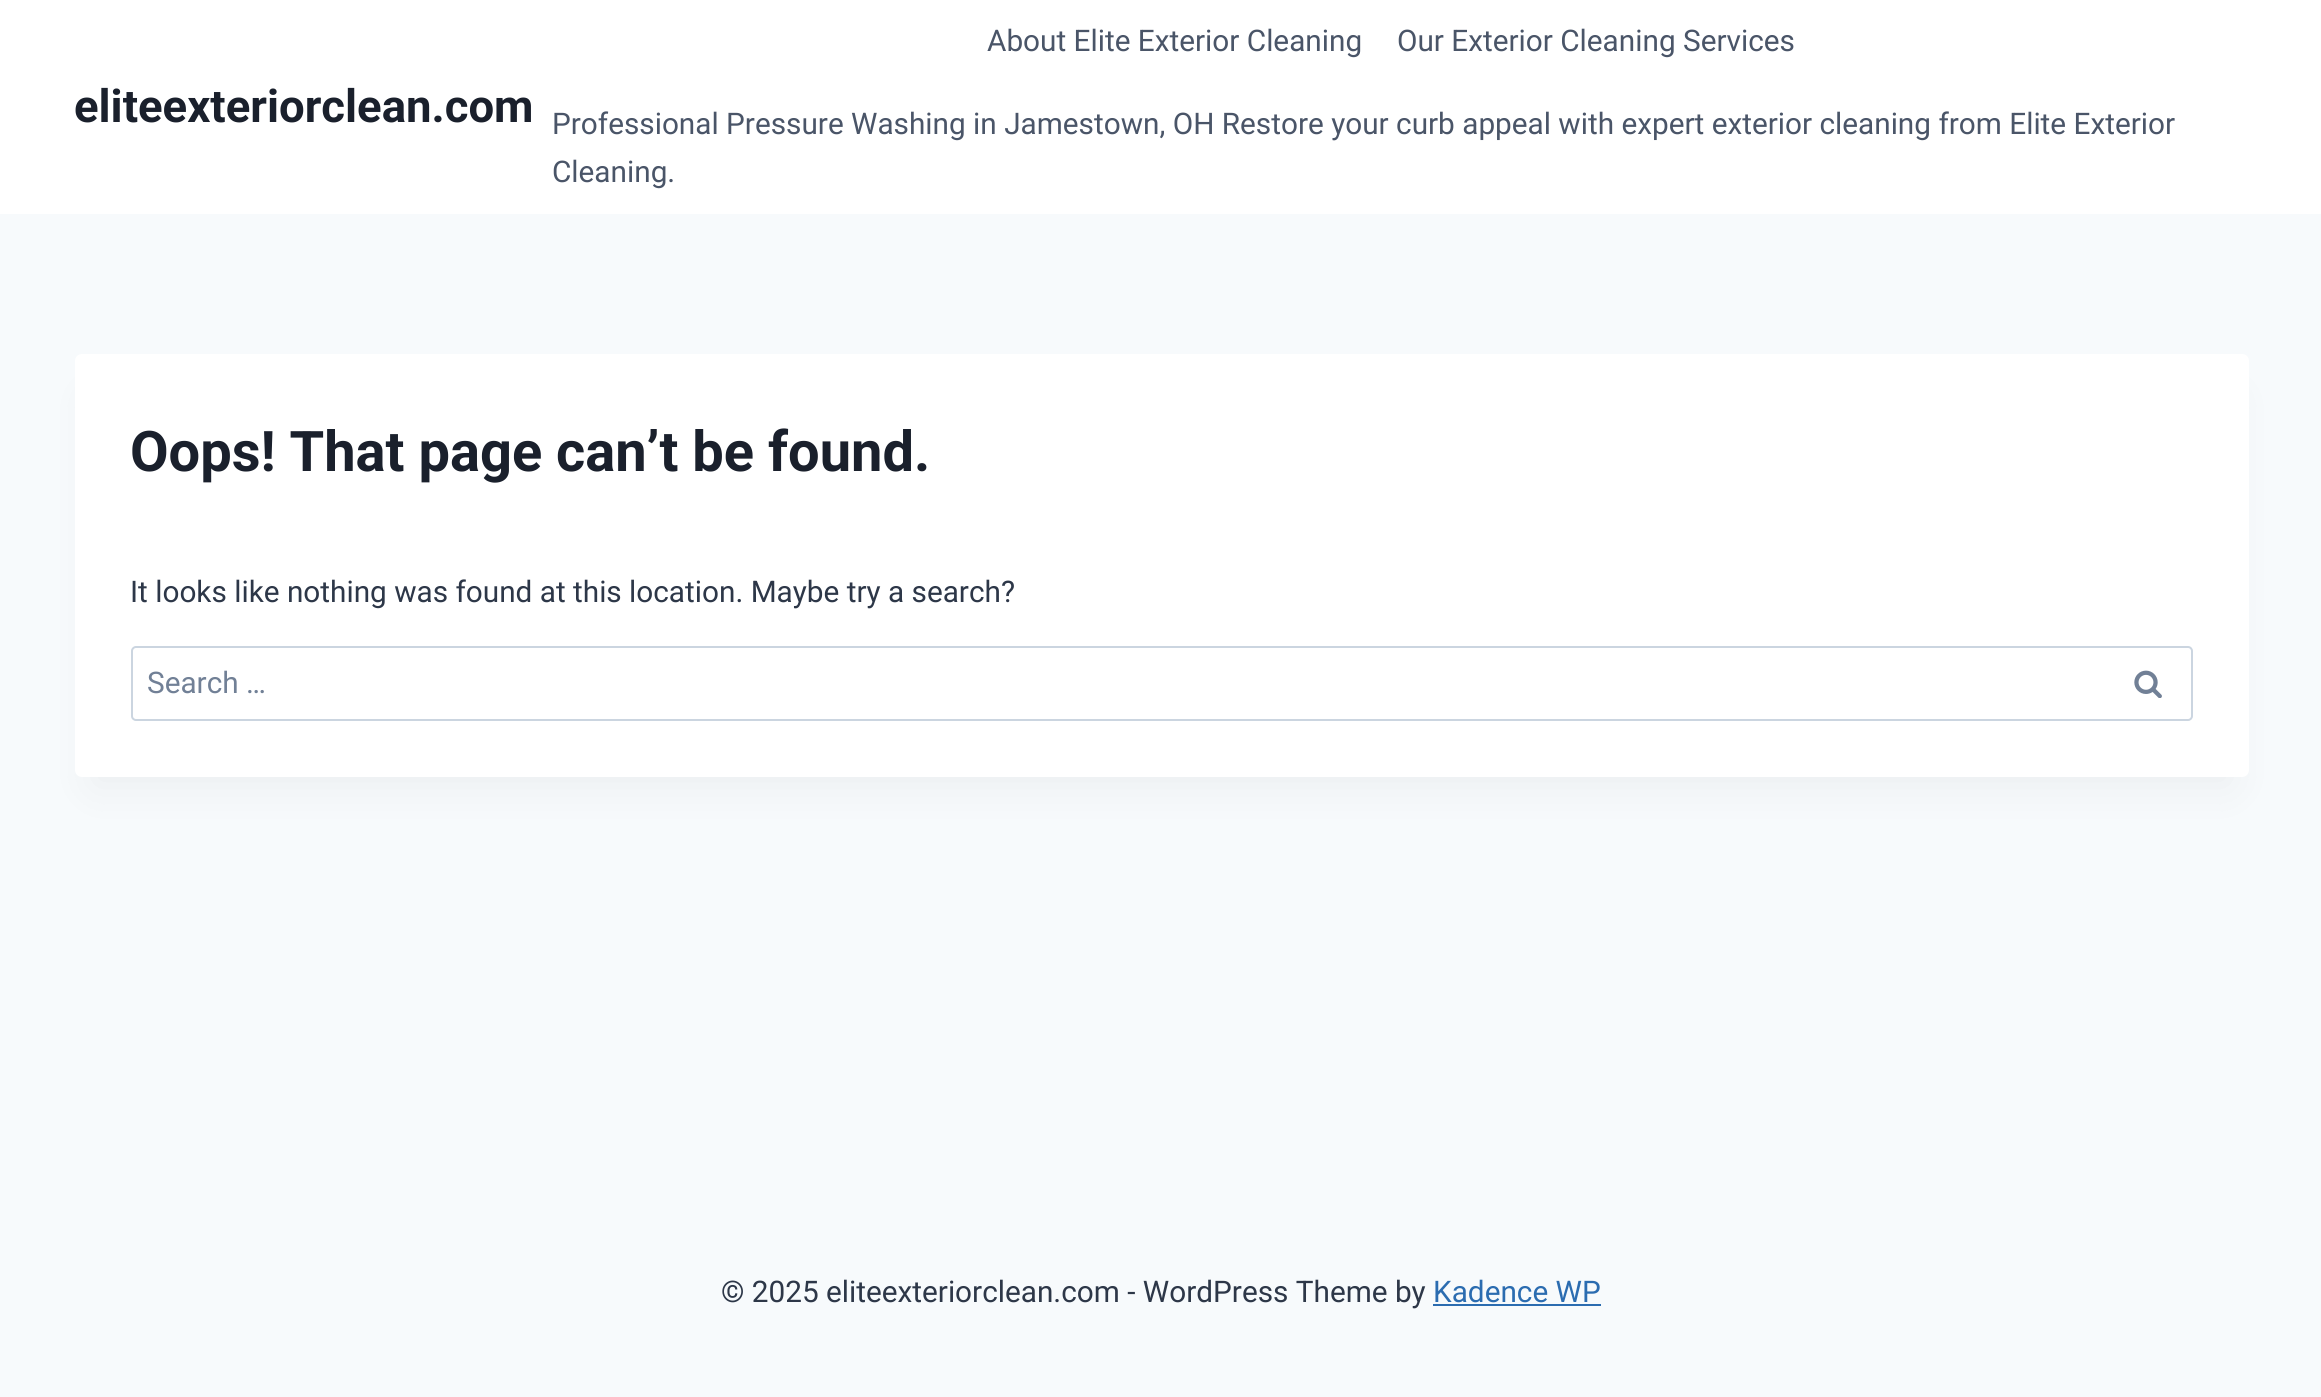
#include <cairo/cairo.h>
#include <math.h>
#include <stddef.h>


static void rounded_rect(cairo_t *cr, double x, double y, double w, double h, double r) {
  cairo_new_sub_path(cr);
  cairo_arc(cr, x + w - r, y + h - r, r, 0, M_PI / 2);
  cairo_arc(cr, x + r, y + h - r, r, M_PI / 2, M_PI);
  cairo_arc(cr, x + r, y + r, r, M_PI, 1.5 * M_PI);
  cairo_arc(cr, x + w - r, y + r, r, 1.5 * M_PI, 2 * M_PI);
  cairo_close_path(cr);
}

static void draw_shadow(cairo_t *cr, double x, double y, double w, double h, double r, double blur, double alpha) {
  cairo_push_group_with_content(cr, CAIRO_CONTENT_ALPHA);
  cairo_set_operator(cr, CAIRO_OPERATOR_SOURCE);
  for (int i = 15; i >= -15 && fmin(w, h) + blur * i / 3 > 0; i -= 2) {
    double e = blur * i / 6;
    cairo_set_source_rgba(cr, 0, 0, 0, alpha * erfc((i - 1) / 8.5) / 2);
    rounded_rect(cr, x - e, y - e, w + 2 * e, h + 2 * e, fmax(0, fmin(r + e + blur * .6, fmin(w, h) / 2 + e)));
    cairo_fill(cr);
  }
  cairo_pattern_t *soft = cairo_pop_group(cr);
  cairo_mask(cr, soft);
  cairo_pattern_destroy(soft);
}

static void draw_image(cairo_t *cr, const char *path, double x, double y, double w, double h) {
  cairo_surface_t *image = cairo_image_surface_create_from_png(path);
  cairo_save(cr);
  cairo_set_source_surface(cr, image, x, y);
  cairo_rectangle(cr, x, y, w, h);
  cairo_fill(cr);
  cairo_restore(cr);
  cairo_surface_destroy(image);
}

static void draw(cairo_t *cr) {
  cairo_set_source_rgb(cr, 247 / 255.0, 250 / 255.0, 252 / 255.0);
  cairo_paint(cr);
  cairo_set_source_rgb(cr, 1, 1, 1);
  cairo_rectangle(cr, 0, 0, 2321, 214);
  cairo_fill(cr);
  cairo_set_source_rgb(cr, 0, 0, 0);
  draw_shadow(cr, 93, 397, 2138, 389, 0, 22, 0.05);
  cairo_set_source_rgb(cr, 1, 1, 1);
  rounded_rect(cr, 75, 354, 2174, 423, 7);
  cairo_fill(cr);
  rounded_rect(cr, 132, 647, 2060, 73, 4);
  cairo_set_source_rgb(cr, 203 / 255.0, 213 / 255.0, 224 / 255.0);
  cairo_stroke(cr);
  draw_image(cr, "images/1.png", 2134, 670, 28, 28);
  cairo_set_source_rgb(cr, 43 / 255.0, 108 / 255.0, 176 / 255.0);
  cairo_rectangle(cr, 1433, 1304, 168, 2);
  cairo_fill(cr);
  cairo_select_font_face(cr, "Roboto", CAIRO_FONT_SLANT_NORMAL, CAIRO_FONT_WEIGHT_BOLD);
  cairo_set_font_size(cr, 45.5);
  cairo_set_source_rgb(cr, 26 / 255.0, 32 / 255.0, 44 / 255.0);
  cairo_move_to(cr, 74, 122);
  cairo_show_text(cr, "eliteexteriorclean.com");
  cairo_select_font_face(cr, "Roboto", CAIRO_FONT_SLANT_NORMAL, CAIRO_FONT_WEIGHT_NORMAL);
  cairo_set_font_size(cr, 29.75);
  cairo_set_source_rgb(cr, 74 / 255.0, 85 / 255.0, 104 / 255.0);
  cairo_move_to(cr, 987, 51);
  cairo_show_text(cr, "About Elite Exterior Cleaning");
  cairo_move_to(cr, 1397, 51);
  cairo_show_text(cr, "Our Exterior Cleaning Services");
  cairo_move_to(cr, 552, 134);
  cairo_show_text(cr, "Professional Pressure Washing in Jamestown, OH Restore your curb appeal with expert exterior cleaning from Elite Exterior");
  cairo_move_to(cr, 552, 182);
  cairo_show_text(cr, "Cleaning.");
  cairo_select_font_face(cr, "Roboto", CAIRO_FONT_SLANT_NORMAL, CAIRO_FONT_WEIGHT_BOLD);
  cairo_set_font_size(cr, 56);
  cairo_set_source_rgb(cr, 26 / 255.0, 32 / 255.0, 44 / 255.0);
  cairo_move_to(cr, 130, 471);
  cairo_show_text(cr, "Oops! That page can’t be found.");
  cairo_select_font_face(cr, "Roboto", CAIRO_FONT_SLANT_NORMAL, CAIRO_FONT_WEIGHT_NORMAL);
  cairo_set_font_size(cr, 29.75);
  cairo_set_source_rgb(cr, 45 / 255.0, 55 / 255.0, 72 / 255.0);
  cairo_move_to(cr, 130, 602);
  cairo_show_text(cr, "It looks like nothing was found at this location. Maybe try a search?");
  cairo_set_source_rgb(cr, 113 / 255.0, 128 / 255.0, 150 / 255.0);
  cairo_move_to(cr, 147, 693);
  cairo_show_text(cr, "Search …");
  cairo_set_source_rgb(cr, 45 / 255.0, 55 / 255.0, 72 / 255.0);
  cairo_move_to(cr, 721, 1302);
  cairo_show_text(cr, "© 2025 eliteexteriorclean.com - WordPress Theme by");
  cairo_set_source_rgb(cr, 43 / 255.0, 108 / 255.0, 176 / 255.0);
  cairo_move_to(cr, 1433, 1302);
  cairo_show_text(cr, "Kadence WP");
}

int main(void) {
  cairo_surface_t *surface = cairo_image_surface_create(CAIRO_FORMAT_RGB24, 2321, 1397);
  cairo_t *cr = cairo_create(surface);
  cairo_font_options_t *options = cairo_font_options_create();
  cairo_font_options_set_hint_metrics(options, CAIRO_HINT_METRICS_OFF);
  cairo_font_options_set_hint_style(options, CAIRO_HINT_STYLE_NONE);
  cairo_set_font_options(cr, options);
  cairo_set_miter_limit(cr, 4);
  draw(cr);
  cairo_surface_write_to_png(surface, "out.png");
  cairo_font_options_destroy(options);
  cairo_destroy(cr);
  cairo_surface_destroy(surface);
  return 0;
}
